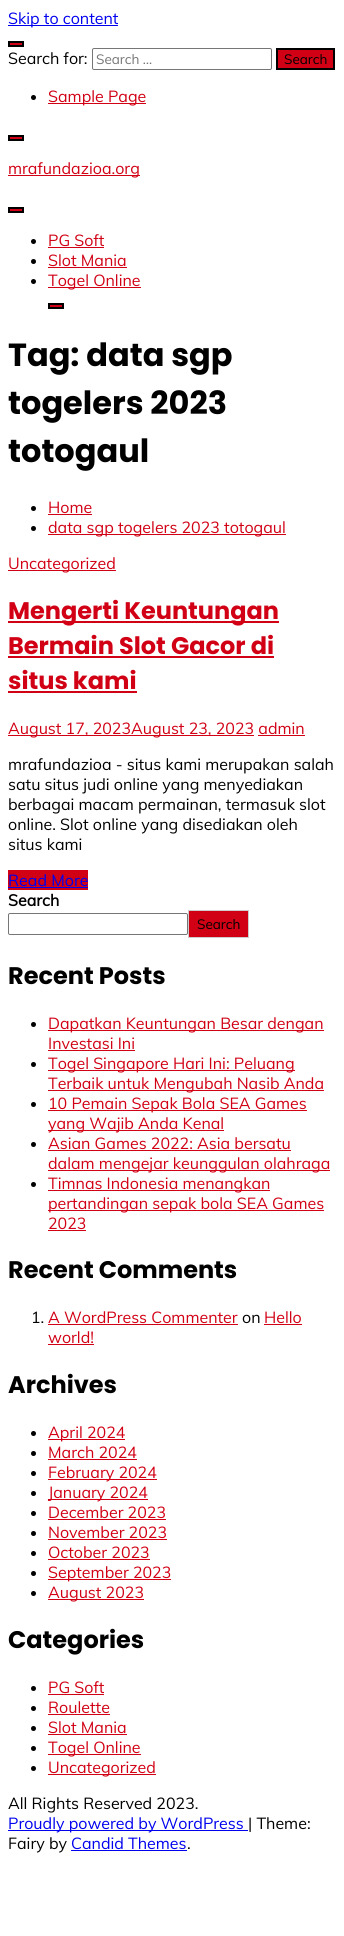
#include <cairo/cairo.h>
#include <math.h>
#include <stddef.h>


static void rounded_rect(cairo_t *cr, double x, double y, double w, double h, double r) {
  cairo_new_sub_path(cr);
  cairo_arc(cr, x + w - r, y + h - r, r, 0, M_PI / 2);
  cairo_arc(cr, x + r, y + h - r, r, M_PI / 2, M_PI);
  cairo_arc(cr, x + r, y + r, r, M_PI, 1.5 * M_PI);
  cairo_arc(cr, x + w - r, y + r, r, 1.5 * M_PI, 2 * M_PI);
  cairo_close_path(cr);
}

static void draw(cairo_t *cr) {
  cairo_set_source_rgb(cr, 1, 1, 1);
  cairo_paint(cr);
  cairo_set_source_rgb(cr, 0, 0, 238 / 255.0);
  cairo_rectangle(cr, 8, 25, 110, 1);
  cairo_fill(cr);
  cairo_set_source_rgb(cr, 209 / 255.0, 0, 20 / 255.0);
  cairo_rectangle(cr, 9, 42, 14, 4);
  cairo_fill_preserve(cr);
  cairo_set_source_rgb(cr, 0, 0, 0);
  cairo_stroke(cr);
  rounded_rect(cr, 92.5, 48.5, 179, 21, 1.5);
  cairo_set_source_rgb(cr, 118 / 255.0, 118 / 255.0, 118 / 255.0);
  cairo_set_line_width(cr, 1);
  cairo_stroke(cr);
  cairo_set_source_rgb(cr, 209 / 255.0, 0, 20 / 255.0);
  cairo_rectangle(cr, 277, 49, 57, 20);
  cairo_fill_preserve(cr);
  cairo_set_source_rgb(cr, 0, 0, 0);
  cairo_set_line_width(cr, 2);
  cairo_stroke(cr);
  cairo_arc(cr, 33.5, 97.5, 2.5, 0, 2 * M_PI);
  cairo_fill(cr);
  cairo_set_source_rgb(cr, 209 / 255.0, 0, 20 / 255.0);
  cairo_rectangle(cr, 48, 103, 98, 1);
  cairo_fill(cr);
  cairo_rectangle(cr, 9, 136, 14, 4);
  cairo_fill_preserve(cr);
  cairo_set_source_rgb(cr, 0, 0, 0);
  cairo_stroke(cr);
  cairo_set_source_rgb(cr, 209 / 255.0, 0, 20 / 255.0);
  cairo_rectangle(cr, 8, 175, 132, 1);
  cairo_fill(cr);
  cairo_rectangle(cr, 9, 208, 14, 4);
  cairo_fill_preserve(cr);
  cairo_set_source_rgb(cr, 0, 0, 0);
  cairo_stroke(cr);
  cairo_arc(cr, 33.5, 241.5, 2.5, 0, 2 * M_PI);
  cairo_fill(cr);
  cairo_set_source_rgb(cr, 209 / 255.0, 0, 20 / 255.0);
  cairo_rectangle(cr, 48, 247, 56, 1);
  cairo_fill(cr);
  cairo_set_source_rgb(cr, 0, 0, 0);
  cairo_arc(cr, 33.5, 261.5, 2.5, 0, 2 * M_PI);
  cairo_fill(cr);
  cairo_set_source_rgb(cr, 209 / 255.0, 0, 20 / 255.0);
  cairo_rectangle(cr, 48, 267, 79, 1);
  cairo_fill(cr);
  cairo_set_source_rgb(cr, 0, 0, 0);
  cairo_arc(cr, 33.5, 281.5, 2.5, 0, 2 * M_PI);
  cairo_fill(cr);
  cairo_set_source_rgb(cr, 209 / 255.0, 0, 20 / 255.0);
  cairo_rectangle(cr, 48, 287, 93, 1);
  cairo_fill(cr);
  cairo_rectangle(cr, 49, 304, 14, 4);
  cairo_fill_preserve(cr);
  cairo_set_source_rgb(cr, 0, 0, 0);
  cairo_stroke(cr);
  cairo_arc(cr, 33.5, 508.5, 2.5, 0, 2 * M_PI);
  cairo_fill(cr);
  cairo_set_source_rgb(cr, 209 / 255.0, 0, 20 / 255.0);
  cairo_rectangle(cr, 48, 514, 44, 1);
  cairo_fill(cr);
  cairo_set_source_rgb(cr, 0, 0, 0);
  cairo_arc(cr, 33.5, 528.5, 2.5, 0, 2 * M_PI);
  cairo_fill(cr);
  cairo_set_source_rgb(cr, 209 / 255.0, 0, 20 / 255.0);
  cairo_rectangle(cr, 48, 534, 238, 1);
  cairo_fill(cr);
  cairo_rectangle(cr, 8, 570, 108, 1);
  cairo_fill(cr);
  cairo_rectangle(cr, 8, 621, 271, 2);
  cairo_fill(cr);
  cairo_rectangle(cr, 8, 656, 266, 2);
  cairo_fill(cr);
  cairo_rectangle(cr, 8, 691, 129, 2);
  cairo_fill(cr);
  cairo_rectangle(cr, 8, 735, 246, 1);
  cairo_fill(cr);
  cairo_rectangle(cr, 258, 735, 47, 1);
  cairo_fill(cr);
  cairo_rectangle(cr, 8, 870, 80, 20);
  cairo_fill(cr);
  cairo_set_source_rgb(cr, 0, 0, 238 / 255.0);
  cairo_rectangle(cr, 8, 887, 80, 1);
  cairo_fill(cr);
  rounded_rect(cr, 8.5, 913.5, 179, 21, 1.5);
  cairo_set_source_rgb(cr, 118 / 255.0, 118 / 255.0, 118 / 255.0);
  cairo_set_line_width(cr, 1);
  cairo_stroke(cr);
  cairo_set_source_rgb(cr, 209 / 255.0, 0, 20 / 255.0);
  cairo_rectangle(cr, 188.5, 910.5, 60, 27);
  cairo_fill_preserve(cr);
  cairo_set_source_rgb(cr, 204 / 255.0, 204 / 255.0, 204 / 255.0);
  cairo_stroke(cr);
  cairo_set_source_rgb(cr, 0, 0, 0);
  cairo_arc(cr, 33.5, 1024.5, 2.5, 0, 2 * M_PI);
  cairo_fill(cr);
  cairo_set_source_rgb(cr, 209 / 255.0, 0, 20 / 255.0);
  cairo_rectangle(cr, 48, 1030, 276, 1);
  cairo_fill(cr);
  cairo_rectangle(cr, 48, 1050, 87, 1);
  cairo_fill(cr);
  cairo_set_source_rgb(cr, 0, 0, 0);
  cairo_arc(cr, 33.5, 1064.5, 2.5, 0, 2 * M_PI);
  cairo_fill(cr);
  cairo_set_source_rgb(cr, 209 / 255.0, 0, 20 / 255.0);
  cairo_rectangle(cr, 48, 1070, 247, 1);
  cairo_fill(cr);
  cairo_rectangle(cr, 48, 1090, 276, 1);
  cairo_fill(cr);
  cairo_set_source_rgb(cr, 0, 0, 0);
  cairo_arc(cr, 33.5, 1104.5, 2.5, 0, 2 * M_PI);
  cairo_fill(cr);
  cairo_set_source_rgb(cr, 209 / 255.0, 0, 20 / 255.0);
  cairo_rectangle(cr, 48, 1110, 259, 1);
  cairo_fill(cr);
  cairo_rectangle(cr, 48, 1130, 176, 1);
  cairo_fill(cr);
  cairo_set_source_rgb(cr, 0, 0, 0);
  cairo_arc(cr, 33.5, 1144.5, 2.5, 0, 2 * M_PI);
  cairo_fill(cr);
  cairo_set_source_rgb(cr, 209 / 255.0, 0, 20 / 255.0);
  cairo_rectangle(cr, 48, 1150, 243, 1);
  cairo_fill(cr);
  cairo_rectangle(cr, 48, 1170, 282, 1);
  cairo_fill(cr);
  cairo_set_source_rgb(cr, 0, 0, 0);
  cairo_arc(cr, 33.5, 1184.5, 2.5, 0, 2 * M_PI);
  cairo_fill(cr);
  cairo_set_source_rgb(cr, 209 / 255.0, 0, 20 / 255.0);
  cairo_rectangle(cr, 48, 1190, 222, 1);
  cairo_fill(cr);
  cairo_rectangle(cr, 48, 1210, 276, 1);
  cairo_fill(cr);
  cairo_rectangle(cr, 48, 1230, 38, 1);
  cairo_fill(cr);
  cairo_rectangle(cr, 48, 1324, 190, 1);
  cairo_fill(cr);
  cairo_rectangle(cr, 264, 1324, 38, 1);
  cairo_fill(cr);
  cairo_rectangle(cr, 48, 1344, 46, 1);
  cairo_fill(cr);
  cairo_set_source_rgb(cr, 0, 0, 0);
  cairo_arc(cr, 33.5, 1433.5, 2.5, 0, 2 * M_PI);
  cairo_fill(cr);
  cairo_set_source_rgb(cr, 209 / 255.0, 0, 20 / 255.0);
  cairo_rectangle(cr, 48, 1439, 77, 1);
  cairo_fill(cr);
  cairo_set_source_rgb(cr, 0, 0, 0);
  cairo_arc(cr, 33.5, 1453.5, 2.5, 0, 2 * M_PI);
  cairo_fill(cr);
  cairo_set_source_rgb(cr, 209 / 255.0, 0, 20 / 255.0);
  cairo_rectangle(cr, 48, 1459, 89, 1);
  cairo_fill(cr);
  cairo_set_source_rgb(cr, 0, 0, 0);
  cairo_arc(cr, 33.5, 1473.5, 2.5, 0, 2 * M_PI);
  cairo_fill(cr);
  cairo_set_source_rgb(cr, 209 / 255.0, 0, 20 / 255.0);
  cairo_rectangle(cr, 48, 1479, 109, 1);
  cairo_fill(cr);
  cairo_set_source_rgb(cr, 0, 0, 0);
  cairo_arc(cr, 33.5, 1493.5, 2.5, 0, 2 * M_PI);
  cairo_fill(cr);
  cairo_set_source_rgb(cr, 209 / 255.0, 0, 20 / 255.0);
  cairo_rectangle(cr, 48, 1499, 100, 1);
  cairo_fill(cr);
  cairo_set_source_rgb(cr, 0, 0, 0);
  cairo_arc(cr, 33.5, 1513.5, 2.5, 0, 2 * M_PI);
  cairo_fill(cr);
  cairo_set_source_rgb(cr, 209 / 255.0, 0, 20 / 255.0);
  cairo_rectangle(cr, 48, 1519, 118, 1);
  cairo_fill(cr);
  cairo_set_source_rgb(cr, 0, 0, 0);
  cairo_arc(cr, 33.5, 1533.5, 2.5, 0, 2 * M_PI);
  cairo_fill(cr);
  cairo_set_source_rgb(cr, 209 / 255.0, 0, 20 / 255.0);
  cairo_rectangle(cr, 48, 1539, 119, 1);
  cairo_fill(cr);
  cairo_set_source_rgb(cr, 0, 0, 0);
  cairo_arc(cr, 33.5, 1553.5, 2.5, 0, 2 * M_PI);
  cairo_fill(cr);
  cairo_set_source_rgb(cr, 209 / 255.0, 0, 20 / 255.0);
  cairo_rectangle(cr, 48, 1559, 102, 1);
  cairo_fill(cr);
  cairo_set_source_rgb(cr, 0, 0, 0);
  cairo_arc(cr, 33.5, 1573.5, 2.5, 0, 2 * M_PI);
  cairo_fill(cr);
  cairo_set_source_rgb(cr, 209 / 255.0, 0, 20 / 255.0);
  cairo_rectangle(cr, 48, 1579, 123, 1);
  cairo_fill(cr);
  cairo_set_source_rgb(cr, 0, 0, 0);
  cairo_arc(cr, 33.5, 1593.5, 2.5, 0, 2 * M_PI);
  cairo_fill(cr);
  cairo_set_source_rgb(cr, 209 / 255.0, 0, 20 / 255.0);
  cairo_rectangle(cr, 48, 1599, 96, 1);
  cairo_fill(cr);
  cairo_set_source_rgb(cr, 0, 0, 0);
  cairo_arc(cr, 33.5, 1688.5, 2.5, 0, 2 * M_PI);
  cairo_fill(cr);
  cairo_set_source_rgb(cr, 209 / 255.0, 0, 20 / 255.0);
  cairo_rectangle(cr, 48, 1694, 56, 1);
  cairo_fill(cr);
  cairo_set_source_rgb(cr, 0, 0, 0);
  cairo_arc(cr, 33.5, 1708.5, 2.5, 0, 2 * M_PI);
  cairo_fill(cr);
  cairo_set_source_rgb(cr, 209 / 255.0, 0, 20 / 255.0);
  cairo_rectangle(cr, 48, 1714, 62, 1);
  cairo_fill(cr);
  cairo_set_source_rgb(cr, 0, 0, 0);
  cairo_arc(cr, 33.5, 1728.5, 2.5, 0, 2 * M_PI);
  cairo_fill(cr);
  cairo_set_source_rgb(cr, 209 / 255.0, 0, 20 / 255.0);
  cairo_rectangle(cr, 48, 1734, 79, 1);
  cairo_fill(cr);
  cairo_set_source_rgb(cr, 0, 0, 0);
  cairo_arc(cr, 33.5, 1748.5, 2.5, 0, 2 * M_PI);
  cairo_fill(cr);
  cairo_set_source_rgb(cr, 209 / 255.0, 0, 20 / 255.0);
  cairo_rectangle(cr, 48, 1754, 93, 1);
  cairo_fill(cr);
  cairo_set_source_rgb(cr, 0, 0, 0);
  cairo_arc(cr, 33.5, 1768.5, 2.5, 0, 2 * M_PI);
  cairo_fill(cr);
  cairo_set_source_rgb(cr, 209 / 255.0, 0, 20 / 255.0);
  cairo_rectangle(cr, 48, 1774, 108, 1);
  cairo_fill(cr);
  cairo_set_source_rgb(cr, 0, 0, 238 / 255.0);
  cairo_rectangle(cr, 8, 1830, 240, 1);
  cairo_fill(cr);
  cairo_rectangle(cr, 71, 1850, 116, 1);
  cairo_fill(cr);
  cairo_select_font_face(cr, "Muli", CAIRO_FONT_SLANT_NORMAL, CAIRO_FONT_WEIGHT_NORMAL);
  cairo_set_font_size(cr, 16);
  cairo_move_to(cr, 8, 24);
  cairo_show_text(cr, "Skip to content");
  cairo_set_source_rgb(cr, 0, 0, 0);
  cairo_move_to(cr, 8, 64);
  cairo_show_text(cr, "Search for:");
  cairo_set_font_size(cr, 13.5);
  cairo_set_source_rgb(cr, 117 / 255.0, 117 / 255.0, 117 / 255.0);
  cairo_move_to(cr, 96, 64);
  cairo_show_text(cr, "Search …");
  cairo_set_source_rgb(cr, 0, 0, 0);
  cairo_move_to(cr, 284, 64);
  cairo_show_text(cr, "Search");
  cairo_set_font_size(cr, 16);
  cairo_set_source_rgb(cr, 209 / 255.0, 0, 20 / 255.0);
  cairo_move_to(cr, 48, 102);
  cairo_show_text(cr, "Sample Page");
  cairo_move_to(cr, 8, 174);
  cairo_show_text(cr, "mrafundazioa.org");
  cairo_move_to(cr, 48, 246);
  cairo_show_text(cr, "PG Soft");
  cairo_move_to(cr, 48, 266);
  cairo_show_text(cr, "Slot Mania");
  cairo_move_to(cr, 48, 286);
  cairo_show_text(cr, "Togel Online");
  cairo_select_font_face(cr, "Poppins", CAIRO_FONT_SLANT_NORMAL, CAIRO_FONT_WEIGHT_BOLD);
  cairo_set_font_size(cr, 32);
  cairo_set_source_rgb(cr, 0, 0, 0);
  cairo_move_to(cr, 8, 366);
  cairo_show_text(cr, "Tag: data sgp");
  cairo_move_to(cr, 8, 414);
  cairo_show_text(cr, "togelers 2023");
  cairo_move_to(cr, 8, 462);
  cairo_show_text(cr, "totogaul");
  cairo_select_font_face(cr, "Muli", CAIRO_FONT_SLANT_NORMAL, CAIRO_FONT_WEIGHT_NORMAL);
  cairo_set_font_size(cr, 16);
  cairo_set_source_rgb(cr, 209 / 255.0, 0, 20 / 255.0);
  cairo_move_to(cr, 48, 513);
  cairo_show_text(cr, "Home");
  cairo_move_to(cr, 48, 533);
  cairo_show_text(cr, "data sgp togelers 2023 totogaul");
  cairo_move_to(cr, 8, 569);
  cairo_show_text(cr, "Uncategorized");
  cairo_select_font_face(cr, "Poppins", CAIRO_FONT_SLANT_NORMAL, CAIRO_FONT_WEIGHT_BOLD);
  cairo_set_font_size(cr, 24);
  cairo_move_to(cr, 8, 619);
  cairo_show_text(cr, "Mengerti Keuntungan");
  cairo_move_to(cr, 8, 654);
  cairo_show_text(cr, "Bermain Slot Gacor di");
  cairo_move_to(cr, 8, 689);
  cairo_show_text(cr, "situs kami");
  cairo_select_font_face(cr, "Muli", CAIRO_FONT_SLANT_NORMAL, CAIRO_FONT_WEIGHT_NORMAL);
  cairo_set_font_size(cr, 16);
  cairo_move_to(cr, 8, 734);
  cairo_show_text(cr, "August 17, 2023August 23, 2023 admin");
  cairo_set_source_rgb(cr, 0, 0, 0);
  cairo_move_to(cr, 8, 770);
  cairo_show_text(cr, "mrafundazioa - situs kami merupakan salah");
  cairo_move_to(cr, 8, 790);
  cairo_show_text(cr, "satu situs judi online yang menyediakan");
  cairo_move_to(cr, 8, 810);
  cairo_show_text(cr, "berbagai macam permainan, termasuk slot");
  cairo_move_to(cr, 8, 830);
  cairo_show_text(cr, "online. Slot online yang disediakan oleh");
  cairo_move_to(cr, 8, 850);
  cairo_show_text(cr, "situs kami");
  cairo_set_source_rgb(cr, 0, 0, 238 / 255.0);
  cairo_move_to(cr, 8, 886);
  cairo_show_text(cr, "Read More");
  cairo_select_font_face(cr, "Muli", CAIRO_FONT_SLANT_NORMAL, CAIRO_FONT_WEIGHT_BOLD);
  cairo_set_source_rgb(cr, 0, 0, 0);
  cairo_move_to(cr, 8, 906);
  cairo_show_text(cr, "Search");
  cairo_select_font_face(cr, "Muli", CAIRO_FONT_SLANT_NORMAL, CAIRO_FONT_WEIGHT_NORMAL);
  cairo_set_font_size(cr, 13.5);
  cairo_move_to(cr, 197, 929);
  cairo_show_text(cr, "Search");
  cairo_select_font_face(cr, "Poppins", CAIRO_FONT_SLANT_NORMAL, CAIRO_FONT_WEIGHT_BOLD);
  cairo_set_font_size(cr, 24);
  cairo_move_to(cr, 8, 984);
  cairo_show_text(cr, "Recent Posts");
  cairo_select_font_face(cr, "Muli", CAIRO_FONT_SLANT_NORMAL, CAIRO_FONT_WEIGHT_NORMAL);
  cairo_set_font_size(cr, 16);
  cairo_set_source_rgb(cr, 209 / 255.0, 0, 20 / 255.0);
  cairo_move_to(cr, 48, 1029);
  cairo_show_text(cr, "Dapatkan Keuntungan Besar dengan");
  cairo_move_to(cr, 48, 1049);
  cairo_show_text(cr, "Investasi Ini");
  cairo_move_to(cr, 48, 1069);
  cairo_show_text(cr, "Togel Singapore Hari Ini: Peluang");
  cairo_move_to(cr, 48, 1089);
  cairo_show_text(cr, "Terbaik untuk Mengubah Nasib Anda");
  cairo_move_to(cr, 48, 1109);
  cairo_show_text(cr, "10 Pemain Sepak Bola SEA Games");
  cairo_move_to(cr, 48, 1129);
  cairo_show_text(cr, "yang Wajib Anda Kenal");
  cairo_move_to(cr, 48, 1149);
  cairo_show_text(cr, "Asian Games 2022: Asia bersatu");
  cairo_move_to(cr, 48, 1169);
  cairo_show_text(cr, "dalam mengejar keunggulan olahraga");
  cairo_move_to(cr, 48, 1189);
  cairo_show_text(cr, "Timnas Indonesia menangkan");
  cairo_move_to(cr, 48, 1209);
  cairo_show_text(cr, "pertandingan sepak bola SEA Games");
  cairo_move_to(cr, 48, 1229);
  cairo_show_text(cr, "2023");
  cairo_select_font_face(cr, "Poppins", CAIRO_FONT_SLANT_NORMAL, CAIRO_FONT_WEIGHT_BOLD);
  cairo_set_font_size(cr, 24);
  cairo_set_source_rgb(cr, 0, 0, 0);
  cairo_move_to(cr, 8, 1278);
  cairo_show_text(cr, "Recent Comments");
  cairo_select_font_face(cr, "Muli", CAIRO_FONT_SLANT_NORMAL, CAIRO_FONT_WEIGHT_NORMAL);
  cairo_set_font_size(cr, 16);
  cairo_move_to(cr, 31, 1323);
  cairo_show_text(cr, "1.");
  cairo_set_source_rgb(cr, 209 / 255.0, 0, 20 / 255.0);
  cairo_move_to(cr, 48, 1323);
  cairo_show_text(cr, "A WordPress Commenter");
  cairo_set_source_rgb(cr, 0, 0, 0);
  cairo_move_to(cr, 242, 1323);
  cairo_show_text(cr, "on");
  cairo_set_source_rgb(cr, 209 / 255.0, 0, 20 / 255.0);
  cairo_move_to(cr, 264, 1323);
  cairo_show_text(cr, "Hello");
  cairo_move_to(cr, 48, 1343);
  cairo_show_text(cr, "world!");
  cairo_select_font_face(cr, "Poppins", CAIRO_FONT_SLANT_NORMAL, CAIRO_FONT_WEIGHT_BOLD);
  cairo_set_font_size(cr, 24);
  cairo_set_source_rgb(cr, 0, 0, 0);
  cairo_move_to(cr, 8, 1393);
  cairo_show_text(cr, "Archives");
  cairo_select_font_face(cr, "Muli", CAIRO_FONT_SLANT_NORMAL, CAIRO_FONT_WEIGHT_NORMAL);
  cairo_set_font_size(cr, 16);
  cairo_set_source_rgb(cr, 209 / 255.0, 0, 20 / 255.0);
  cairo_move_to(cr, 48, 1438);
  cairo_show_text(cr, "April 2024");
  cairo_move_to(cr, 48, 1458);
  cairo_show_text(cr, "March 2024");
  cairo_move_to(cr, 48, 1478);
  cairo_show_text(cr, "February 2024");
  cairo_move_to(cr, 48, 1498);
  cairo_show_text(cr, "January 2024");
  cairo_move_to(cr, 48, 1518);
  cairo_show_text(cr, "December 2023");
  cairo_move_to(cr, 48, 1538);
  cairo_show_text(cr, "November 2023");
  cairo_move_to(cr, 48, 1558);
  cairo_show_text(cr, "October 2023");
  cairo_move_to(cr, 48, 1578);
  cairo_show_text(cr, "September 2023");
  cairo_move_to(cr, 48, 1598);
  cairo_show_text(cr, "August 2023");
  cairo_select_font_face(cr, "Poppins", CAIRO_FONT_SLANT_NORMAL, CAIRO_FONT_WEIGHT_BOLD);
  cairo_set_font_size(cr, 24);
  cairo_set_source_rgb(cr, 0, 0, 0);
  cairo_move_to(cr, 8, 1648);
  cairo_show_text(cr, "Categories");
  cairo_select_font_face(cr, "Muli", CAIRO_FONT_SLANT_NORMAL, CAIRO_FONT_WEIGHT_NORMAL);
  cairo_set_font_size(cr, 16);
  cairo_set_source_rgb(cr, 209 / 255.0, 0, 20 / 255.0);
  cairo_move_to(cr, 48, 1693);
  cairo_show_text(cr, "PG Soft");
  cairo_move_to(cr, 48, 1713);
  cairo_show_text(cr, "Roulette");
  cairo_move_to(cr, 48, 1733);
  cairo_show_text(cr, "Slot Mania");
  cairo_move_to(cr, 48, 1753);
  cairo_show_text(cr, "Togel Online");
  cairo_move_to(cr, 48, 1773);
  cairo_show_text(cr, "Uncategorized");
  cairo_set_source_rgb(cr, 0, 0, 0);
  cairo_move_to(cr, 8, 1809);
  cairo_show_text(cr, "All Rights Reserved 2023.");
  cairo_set_source_rgb(cr, 0, 0, 238 / 255.0);
  cairo_move_to(cr, 8, 1829);
  cairo_show_text(cr, "Proudly powered by WordPress");
  cairo_set_source_rgb(cr, 0, 0, 0);
  cairo_move_to(cr, 248, 1829);
  cairo_show_text(cr, "| Theme:");
  cairo_move_to(cr, 8, 1849);
  cairo_show_text(cr, "Fairy by");
  cairo_set_source_rgb(cr, 0, 0, 238 / 255.0);
  cairo_move_to(cr, 71, 1849);
  cairo_show_text(cr, "Candid Themes");
  cairo_set_source_rgb(cr, 0, 0, 0);
  cairo_move_to(cr, 187, 1849);
  cairo_show_text(cr, ".");
}

int main(void) {
  cairo_surface_t *surface = cairo_image_surface_create(CAIRO_FORMAT_RGB24, 344, 1936);
  cairo_t *cr = cairo_create(surface);
  cairo_font_options_t *options = cairo_font_options_create();
  cairo_font_options_set_hint_metrics(options, CAIRO_HINT_METRICS_OFF);
  cairo_font_options_set_hint_style(options, CAIRO_HINT_STYLE_NONE);
  cairo_set_font_options(cr, options);
  cairo_set_miter_limit(cr, 4);
  draw(cr);
  cairo_surface_write_to_png(surface, "out.png");
  cairo_font_options_destroy(options);
  cairo_destroy(cr);
  cairo_surface_destroy(surface);
  return 0;
}
